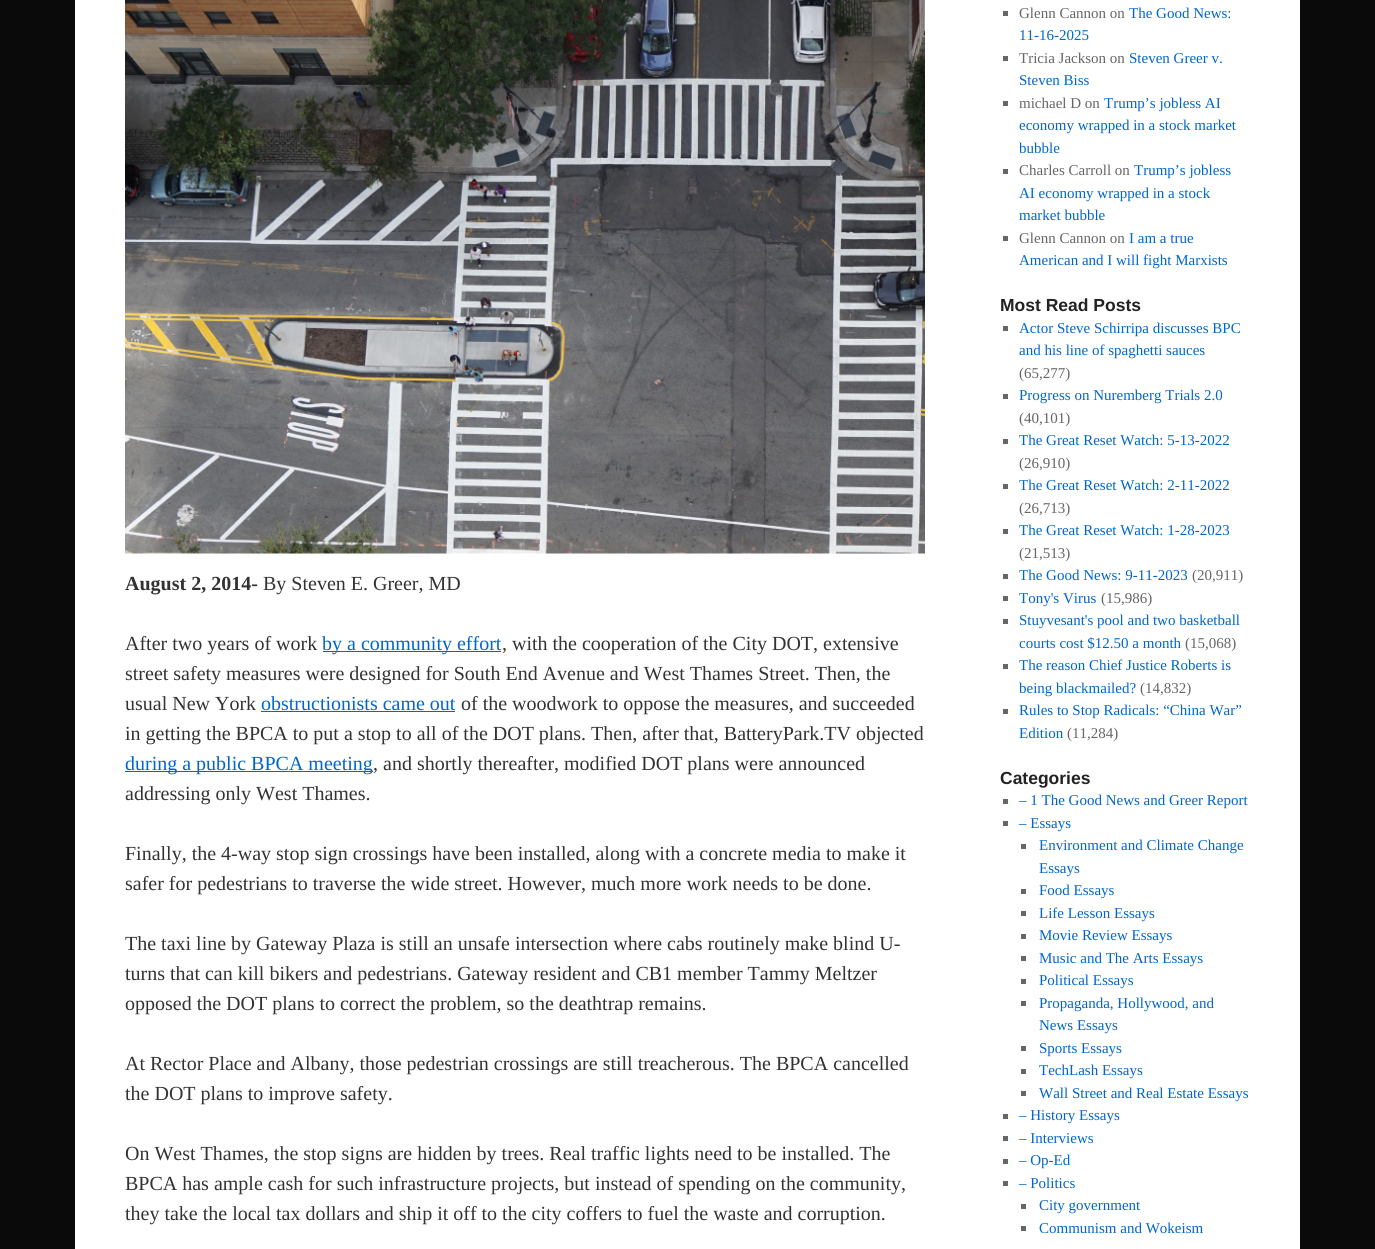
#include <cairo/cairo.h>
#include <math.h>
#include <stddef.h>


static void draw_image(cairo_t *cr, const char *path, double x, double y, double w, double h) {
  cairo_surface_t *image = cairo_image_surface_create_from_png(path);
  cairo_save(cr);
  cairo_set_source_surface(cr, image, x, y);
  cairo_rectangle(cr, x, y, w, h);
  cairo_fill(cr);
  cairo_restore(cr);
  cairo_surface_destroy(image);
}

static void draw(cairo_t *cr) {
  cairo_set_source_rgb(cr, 10 / 255.0, 10 / 255.0, 10 / 255.0);
  cairo_paint(cr);
  cairo_set_source_rgb(cr, 1, 1, 1);
  cairo_rectangle(cr, 75, 0, 1225, 1249);
  cairo_fill(cr);
  draw_image(cr, "images/1.png", 125, 0, 800, 554);
  cairo_set_source_rgb(cr, 0, 102 / 255.0, 204 / 255.0);
  cairo_rectangle(cr, 323, 651, 178, 1);
  cairo_fill(cr);
  cairo_rectangle(cr, 261, 711, 194, 1);
  cairo_fill(cr);
  cairo_rectangle(cr, 125, 771, 248, 1);
  cairo_fill(cr);
  cairo_set_source_rgb(cr, 102 / 255.0, 102 / 255.0, 102 / 255.0);
  cairo_rectangle(cr, 1003, 11, 5, 5);
  cairo_fill(cr);
  cairo_rectangle(cr, 1003, 56, 5, 5);
  cairo_fill(cr);
  cairo_rectangle(cr, 1003, 101, 5, 5);
  cairo_fill(cr);
  cairo_rectangle(cr, 1003, 169, 5, 5);
  cairo_fill(cr);
  cairo_rectangle(cr, 1003, 236, 5, 5);
  cairo_fill(cr);
  cairo_rectangle(cr, 1003, 326, 5, 5);
  cairo_fill(cr);
  cairo_rectangle(cr, 1003, 394, 5, 5);
  cairo_fill(cr);
  cairo_rectangle(cr, 1003, 439, 5, 5);
  cairo_fill(cr);
  cairo_rectangle(cr, 1003, 484, 5, 5);
  cairo_fill(cr);
  cairo_rectangle(cr, 1003, 529, 5, 5);
  cairo_fill(cr);
  cairo_rectangle(cr, 1003, 574, 5, 5);
  cairo_fill(cr);
  cairo_rectangle(cr, 1003, 596, 5, 5);
  cairo_fill(cr);
  cairo_rectangle(cr, 1003, 619, 5, 5);
  cairo_fill(cr);
  cairo_rectangle(cr, 1003, 664, 5, 5);
  cairo_fill(cr);
  cairo_rectangle(cr, 1003, 709, 5, 5);
  cairo_fill(cr);
  cairo_rectangle(cr, 1003, 799, 5, 5);
  cairo_fill(cr);
  cairo_rectangle(cr, 1003, 821, 5, 5);
  cairo_fill(cr);
  cairo_rectangle(cr, 1021, 844, 5, 5);
  cairo_fill(cr);
  cairo_rectangle(cr, 1021, 889, 5, 5);
  cairo_fill(cr);
  cairo_rectangle(cr, 1021, 911, 5, 5);
  cairo_fill(cr);
  cairo_rectangle(cr, 1021, 934, 5, 5);
  cairo_fill(cr);
  cairo_rectangle(cr, 1021, 956, 5, 5);
  cairo_fill(cr);
  cairo_rectangle(cr, 1021, 979, 5, 5);
  cairo_fill(cr);
  cairo_rectangle(cr, 1021, 1001, 5, 5);
  cairo_fill(cr);
  cairo_rectangle(cr, 1021, 1046, 5, 5);
  cairo_fill(cr);
  cairo_rectangle(cr, 1021, 1069, 5, 5);
  cairo_fill(cr);
  cairo_rectangle(cr, 1021, 1091, 5, 5);
  cairo_fill(cr);
  cairo_rectangle(cr, 1003, 1114, 5, 5);
  cairo_fill(cr);
  cairo_rectangle(cr, 1003, 1136, 5, 5);
  cairo_fill(cr);
  cairo_rectangle(cr, 1003, 1159, 5, 5);
  cairo_fill(cr);
  cairo_rectangle(cr, 1003, 1181, 5, 5);
  cairo_fill(cr);
  cairo_rectangle(cr, 1021, 1204, 5, 5);
  cairo_fill(cr);
  cairo_rectangle(cr, 1021, 1226, 5, 5);
  cairo_fill(cr);
  cairo_select_font_face(cr, "Liberation Serif", CAIRO_FONT_SLANT_NORMAL, CAIRO_FONT_WEIGHT_BOLD);
  cairo_set_font_size(cr, 20);
  cairo_set_source_rgb(cr, 51 / 255.0, 51 / 255.0, 51 / 255.0);
  cairo_move_to(cr, 125, 590);
  cairo_show_text(cr, "August 2, 2014-");
  cairo_select_font_face(cr, "Liberation Serif", CAIRO_FONT_SLANT_NORMAL, CAIRO_FONT_WEIGHT_NORMAL);
  cairo_move_to(cr, 263, 590);
  cairo_show_text(cr, "By Steven E. Greer, MD");
  cairo_move_to(cr, 125, 650);
  cairo_show_text(cr, "After two years of work");
  cairo_set_source_rgb(cr, 0, 102 / 255.0, 204 / 255.0);
  cairo_move_to(cr, 322, 650);
  cairo_show_text(cr, "by a community effort");
  cairo_set_source_rgb(cr, 51 / 255.0, 51 / 255.0, 51 / 255.0);
  cairo_move_to(cr, 502, 650);
  cairo_show_text(cr, ", with the cooperation of the City DOT, extensive");
  cairo_move_to(cr, 125, 680);
  cairo_show_text(cr, "street safety measures were designed for South End Avenue and West Thames Street. Then, the");
  cairo_move_to(cr, 125, 710);
  cairo_show_text(cr, "usual New York");
  cairo_set_source_rgb(cr, 0, 102 / 255.0, 204 / 255.0);
  cairo_move_to(cr, 261, 710);
  cairo_show_text(cr, "obstructionists came out");
  cairo_set_source_rgb(cr, 51 / 255.0, 51 / 255.0, 51 / 255.0);
  cairo_move_to(cr, 461, 710);
  cairo_show_text(cr, "of the woodwork to oppose the measures, and succeeded");
  cairo_move_to(cr, 125, 740);
  cairo_show_text(cr, "in getting the BPCA to put a stop to all of the DOT plans. Then, after that, BatteryPark.TV objected");
  cairo_set_source_rgb(cr, 0, 102 / 255.0, 204 / 255.0);
  cairo_move_to(cr, 125, 770);
  cairo_show_text(cr, "during a public BPCA meeting");
  cairo_set_source_rgb(cr, 51 / 255.0, 51 / 255.0, 51 / 255.0);
  cairo_move_to(cr, 373, 770);
  cairo_show_text(cr, ", and shortly thereafter, modified DOT plans were announced");
  cairo_move_to(cr, 125, 800);
  cairo_show_text(cr, "addressing only West Thames.");
  cairo_move_to(cr, 125, 860);
  cairo_show_text(cr, "Finally, the 4-way stop sign crossings have been installed, along with a concrete media to make it");
  cairo_move_to(cr, 125, 890);
  cairo_show_text(cr, "safer for pedestrians to traverse the wide street. However, much more work needs to be done.");
  cairo_move_to(cr, 125, 950);
  cairo_show_text(cr, "The taxi line by Gateway Plaza is still an unsafe intersection where cabs routinely make blind U-");
  cairo_move_to(cr, 125, 980);
  cairo_show_text(cr, "turns that can kill bikers and pedestrians. Gateway resident and CB1 member Tammy Meltzer");
  cairo_move_to(cr, 125, 1010);
  cairo_show_text(cr, "opposed the DOT plans to correct the problem, so the deathtrap remains.");
  cairo_move_to(cr, 125, 1070);
  cairo_show_text(cr, "At Rector Place and Albany, those pedestrian crossings are still treacherous. The BPCA cancelled");
  cairo_move_to(cr, 125, 1100);
  cairo_show_text(cr, "the DOT plans to improve safety.");
  cairo_move_to(cr, 125, 1160);
  cairo_show_text(cr, "On West Thames, the stop signs are hidden by trees. Real traffic lights need to be installed. The");
  cairo_move_to(cr, 125, 1190);
  cairo_show_text(cr, "BPCA has ample cash for such infrastructure projects, but instead of spending on the community,");
  cairo_move_to(cr, 125, 1220);
  cairo_show_text(cr, "they take the local tax dollars and ship it off to the city coffers to fuel the waste and corruption.");
  cairo_set_font_size(cr, 15);
  cairo_set_source_rgb(cr, 102 / 255.0, 102 / 255.0, 102 / 255.0);
  cairo_move_to(cr, 1019, 18);
  cairo_show_text(cr, "Glenn Cannon on");
  cairo_set_source_rgb(cr, 0, 102 / 255.0, 204 / 255.0);
  cairo_move_to(cr, 1129, 18);
  cairo_show_text(cr, "The Good News:");
  cairo_move_to(cr, 1019, 40);
  cairo_show_text(cr, "11-16-2025");
  cairo_set_source_rgb(cr, 102 / 255.0, 102 / 255.0, 102 / 255.0);
  cairo_move_to(cr, 1019, 63);
  cairo_show_text(cr, "Tricia Jackson on");
  cairo_set_source_rgb(cr, 0, 102 / 255.0, 204 / 255.0);
  cairo_move_to(cr, 1129, 63);
  cairo_show_text(cr, "Steven Greer v.");
  cairo_move_to(cr, 1019, 85);
  cairo_show_text(cr, "Steven Biss");
  cairo_set_source_rgb(cr, 102 / 255.0, 102 / 255.0, 102 / 255.0);
  cairo_move_to(cr, 1019, 108);
  cairo_show_text(cr, "michael D on");
  cairo_set_source_rgb(cr, 0, 102 / 255.0, 204 / 255.0);
  cairo_move_to(cr, 1104, 108);
  cairo_show_text(cr, "Trump’s jobless AI");
  cairo_move_to(cr, 1019, 130);
  cairo_show_text(cr, "economy wrapped in a stock market");
  cairo_move_to(cr, 1019, 153);
  cairo_show_text(cr, "bubble");
  cairo_set_source_rgb(cr, 102 / 255.0, 102 / 255.0, 102 / 255.0);
  cairo_move_to(cr, 1019, 175);
  cairo_show_text(cr, "Charles Carroll on");
  cairo_set_source_rgb(cr, 0, 102 / 255.0, 204 / 255.0);
  cairo_move_to(cr, 1134, 175);
  cairo_show_text(cr, "Trump’s jobless");
  cairo_move_to(cr, 1019, 198);
  cairo_show_text(cr, "AI economy wrapped in a stock");
  cairo_move_to(cr, 1019, 220);
  cairo_show_text(cr, "market bubble");
  cairo_set_source_rgb(cr, 102 / 255.0, 102 / 255.0, 102 / 255.0);
  cairo_move_to(cr, 1019, 243);
  cairo_show_text(cr, "Glenn Cannon on");
  cairo_set_source_rgb(cr, 0, 102 / 255.0, 204 / 255.0);
  cairo_move_to(cr, 1129, 243);
  cairo_show_text(cr, "I am a true");
  cairo_move_to(cr, 1019, 265);
  cairo_show_text(cr, "American and I will fight Marxists");
  cairo_select_font_face(cr, "Liberation Sans", CAIRO_FONT_SLANT_NORMAL, CAIRO_FONT_WEIGHT_BOLD);
  cairo_set_font_size(cr, 17.5);
  cairo_set_source_rgb(cr, 34 / 255.0, 34 / 255.0, 34 / 255.0);
  cairo_move_to(cr, 1000, 311);
  cairo_show_text(cr, "Most Read Posts");
  cairo_select_font_face(cr, "Liberation Serif", CAIRO_FONT_SLANT_NORMAL, CAIRO_FONT_WEIGHT_NORMAL);
  cairo_set_font_size(cr, 15);
  cairo_set_source_rgb(cr, 0, 102 / 255.0, 204 / 255.0);
  cairo_move_to(cr, 1019, 333);
  cairo_show_text(cr, "Actor Steve Schirripa discusses BPC");
  cairo_move_to(cr, 1019, 355);
  cairo_show_text(cr, "and his line of spaghetti sauces");
  cairo_set_source_rgb(cr, 102 / 255.0, 102 / 255.0, 102 / 255.0);
  cairo_move_to(cr, 1019, 378);
  cairo_show_text(cr, "(65,277)");
  cairo_set_source_rgb(cr, 0, 102 / 255.0, 204 / 255.0);
  cairo_move_to(cr, 1019, 400);
  cairo_show_text(cr, "Progress on Nuremberg Trials 2.0");
  cairo_set_source_rgb(cr, 102 / 255.0, 102 / 255.0, 102 / 255.0);
  cairo_move_to(cr, 1019, 423);
  cairo_show_text(cr, "(40,101)");
  cairo_set_source_rgb(cr, 0, 102 / 255.0, 204 / 255.0);
  cairo_move_to(cr, 1019, 445);
  cairo_show_text(cr, "The Great Reset Watch: 5-13-2022");
  cairo_set_source_rgb(cr, 102 / 255.0, 102 / 255.0, 102 / 255.0);
  cairo_move_to(cr, 1019, 468);
  cairo_show_text(cr, "(26,910)");
  cairo_set_source_rgb(cr, 0, 102 / 255.0, 204 / 255.0);
  cairo_move_to(cr, 1019, 490);
  cairo_show_text(cr, "The Great Reset Watch: 2-11-2022");
  cairo_set_source_rgb(cr, 102 / 255.0, 102 / 255.0, 102 / 255.0);
  cairo_move_to(cr, 1019, 513);
  cairo_show_text(cr, "(26,713)");
  cairo_set_source_rgb(cr, 0, 102 / 255.0, 204 / 255.0);
  cairo_move_to(cr, 1019, 535);
  cairo_show_text(cr, "The Great Reset Watch: 1-28-2023");
  cairo_set_source_rgb(cr, 102 / 255.0, 102 / 255.0, 102 / 255.0);
  cairo_move_to(cr, 1019, 558);
  cairo_show_text(cr, "(21,513)");
  cairo_set_source_rgb(cr, 0, 102 / 255.0, 204 / 255.0);
  cairo_move_to(cr, 1019, 580);
  cairo_show_text(cr, "The Good News: 9-11-2023");
  cairo_set_source_rgb(cr, 102 / 255.0, 102 / 255.0, 102 / 255.0);
  cairo_move_to(cr, 1192, 580);
  cairo_show_text(cr, "(20,911)");
  cairo_set_source_rgb(cr, 0, 102 / 255.0, 204 / 255.0);
  cairo_move_to(cr, 1019, 603);
  cairo_show_text(cr, "Tony's Virus");
  cairo_set_source_rgb(cr, 102 / 255.0, 102 / 255.0, 102 / 255.0);
  cairo_move_to(cr, 1101, 603);
  cairo_show_text(cr, "(15,986)");
  cairo_set_source_rgb(cr, 0, 102 / 255.0, 204 / 255.0);
  cairo_move_to(cr, 1019, 625);
  cairo_show_text(cr, "Stuyvesant's pool and two basketball");
  cairo_move_to(cr, 1019, 648);
  cairo_show_text(cr, "courts cost $12.50 a month");
  cairo_set_source_rgb(cr, 102 / 255.0, 102 / 255.0, 102 / 255.0);
  cairo_move_to(cr, 1185, 648);
  cairo_show_text(cr, "(15,068)");
  cairo_set_source_rgb(cr, 0, 102 / 255.0, 204 / 255.0);
  cairo_move_to(cr, 1019, 670);
  cairo_show_text(cr, "The reason Chief Justice Roberts is");
  cairo_move_to(cr, 1019, 693);
  cairo_show_text(cr, "being blackmailed?");
  cairo_set_source_rgb(cr, 102 / 255.0, 102 / 255.0, 102 / 255.0);
  cairo_move_to(cr, 1140, 693);
  cairo_show_text(cr, "(14,832)");
  cairo_set_source_rgb(cr, 0, 102 / 255.0, 204 / 255.0);
  cairo_move_to(cr, 1019, 715);
  cairo_show_text(cr, "Rules to Stop Radicals: “China War”");
  cairo_move_to(cr, 1019, 738);
  cairo_show_text(cr, "Edition");
  cairo_set_source_rgb(cr, 102 / 255.0, 102 / 255.0, 102 / 255.0);
  cairo_move_to(cr, 1067, 738);
  cairo_show_text(cr, "(11,284)");
  cairo_select_font_face(cr, "Liberation Sans", CAIRO_FONT_SLANT_NORMAL, CAIRO_FONT_WEIGHT_BOLD);
  cairo_set_font_size(cr, 17.5);
  cairo_set_source_rgb(cr, 34 / 255.0, 34 / 255.0, 34 / 255.0);
  cairo_move_to(cr, 1000, 784);
  cairo_show_text(cr, "Categories");
  cairo_select_font_face(cr, "Liberation Serif", CAIRO_FONT_SLANT_NORMAL, CAIRO_FONT_WEIGHT_NORMAL);
  cairo_set_font_size(cr, 15);
  cairo_set_source_rgb(cr, 0, 102 / 255.0, 204 / 255.0);
  cairo_move_to(cr, 1019, 805);
  cairo_show_text(cr, "– 1 The Good News and Greer Report");
  cairo_move_to(cr, 1019, 828);
  cairo_show_text(cr, "– Essays");
  cairo_move_to(cr, 1039, 850);
  cairo_show_text(cr, "Environment and Climate Change");
  cairo_move_to(cr, 1039, 873);
  cairo_show_text(cr, "Essays");
  cairo_move_to(cr, 1039, 895);
  cairo_show_text(cr, "Food Essays");
  cairo_move_to(cr, 1039, 918);
  cairo_show_text(cr, "Life Lesson Essays");
  cairo_move_to(cr, 1039, 940);
  cairo_show_text(cr, "Movie Review Essays");
  cairo_move_to(cr, 1039, 963);
  cairo_show_text(cr, "Music and The Arts Essays");
  cairo_move_to(cr, 1039, 985);
  cairo_show_text(cr, "Political Essays");
  cairo_move_to(cr, 1039, 1008);
  cairo_show_text(cr, "Propaganda, Hollywood, and");
  cairo_move_to(cr, 1039, 1030);
  cairo_show_text(cr, "News Essays");
  cairo_move_to(cr, 1039, 1053);
  cairo_show_text(cr, "Sports Essays");
  cairo_move_to(cr, 1039, 1075);
  cairo_show_text(cr, "TechLash Essays");
  cairo_move_to(cr, 1039, 1098);
  cairo_show_text(cr, "Wall Street and Real Estate Essays");
  cairo_move_to(cr, 1019, 1120);
  cairo_show_text(cr, "– History Essays");
  cairo_move_to(cr, 1019, 1143);
  cairo_show_text(cr, "– Interviews");
  cairo_move_to(cr, 1019, 1165);
  cairo_show_text(cr, "– Op-Ed");
  cairo_move_to(cr, 1019, 1188);
  cairo_show_text(cr, "– Politics");
  cairo_move_to(cr, 1039, 1210);
  cairo_show_text(cr, "City government");
  cairo_move_to(cr, 1039, 1233);
  cairo_show_text(cr, "Communism and Wokeism");
}

int main(void) {
  cairo_surface_t *surface = cairo_image_surface_create(CAIRO_FORMAT_RGB24, 1375, 1249);
  cairo_t *cr = cairo_create(surface);
  cairo_font_options_t *options = cairo_font_options_create();
  cairo_font_options_set_hint_metrics(options, CAIRO_HINT_METRICS_OFF);
  cairo_font_options_set_hint_style(options, CAIRO_HINT_STYLE_NONE);
  cairo_set_font_options(cr, options);
  cairo_set_miter_limit(cr, 4);
  draw(cr);
  cairo_surface_write_to_png(surface, "out.png");
  cairo_font_options_destroy(options);
  cairo_destroy(cr);
  cairo_surface_destroy(surface);
  return 0;
}
